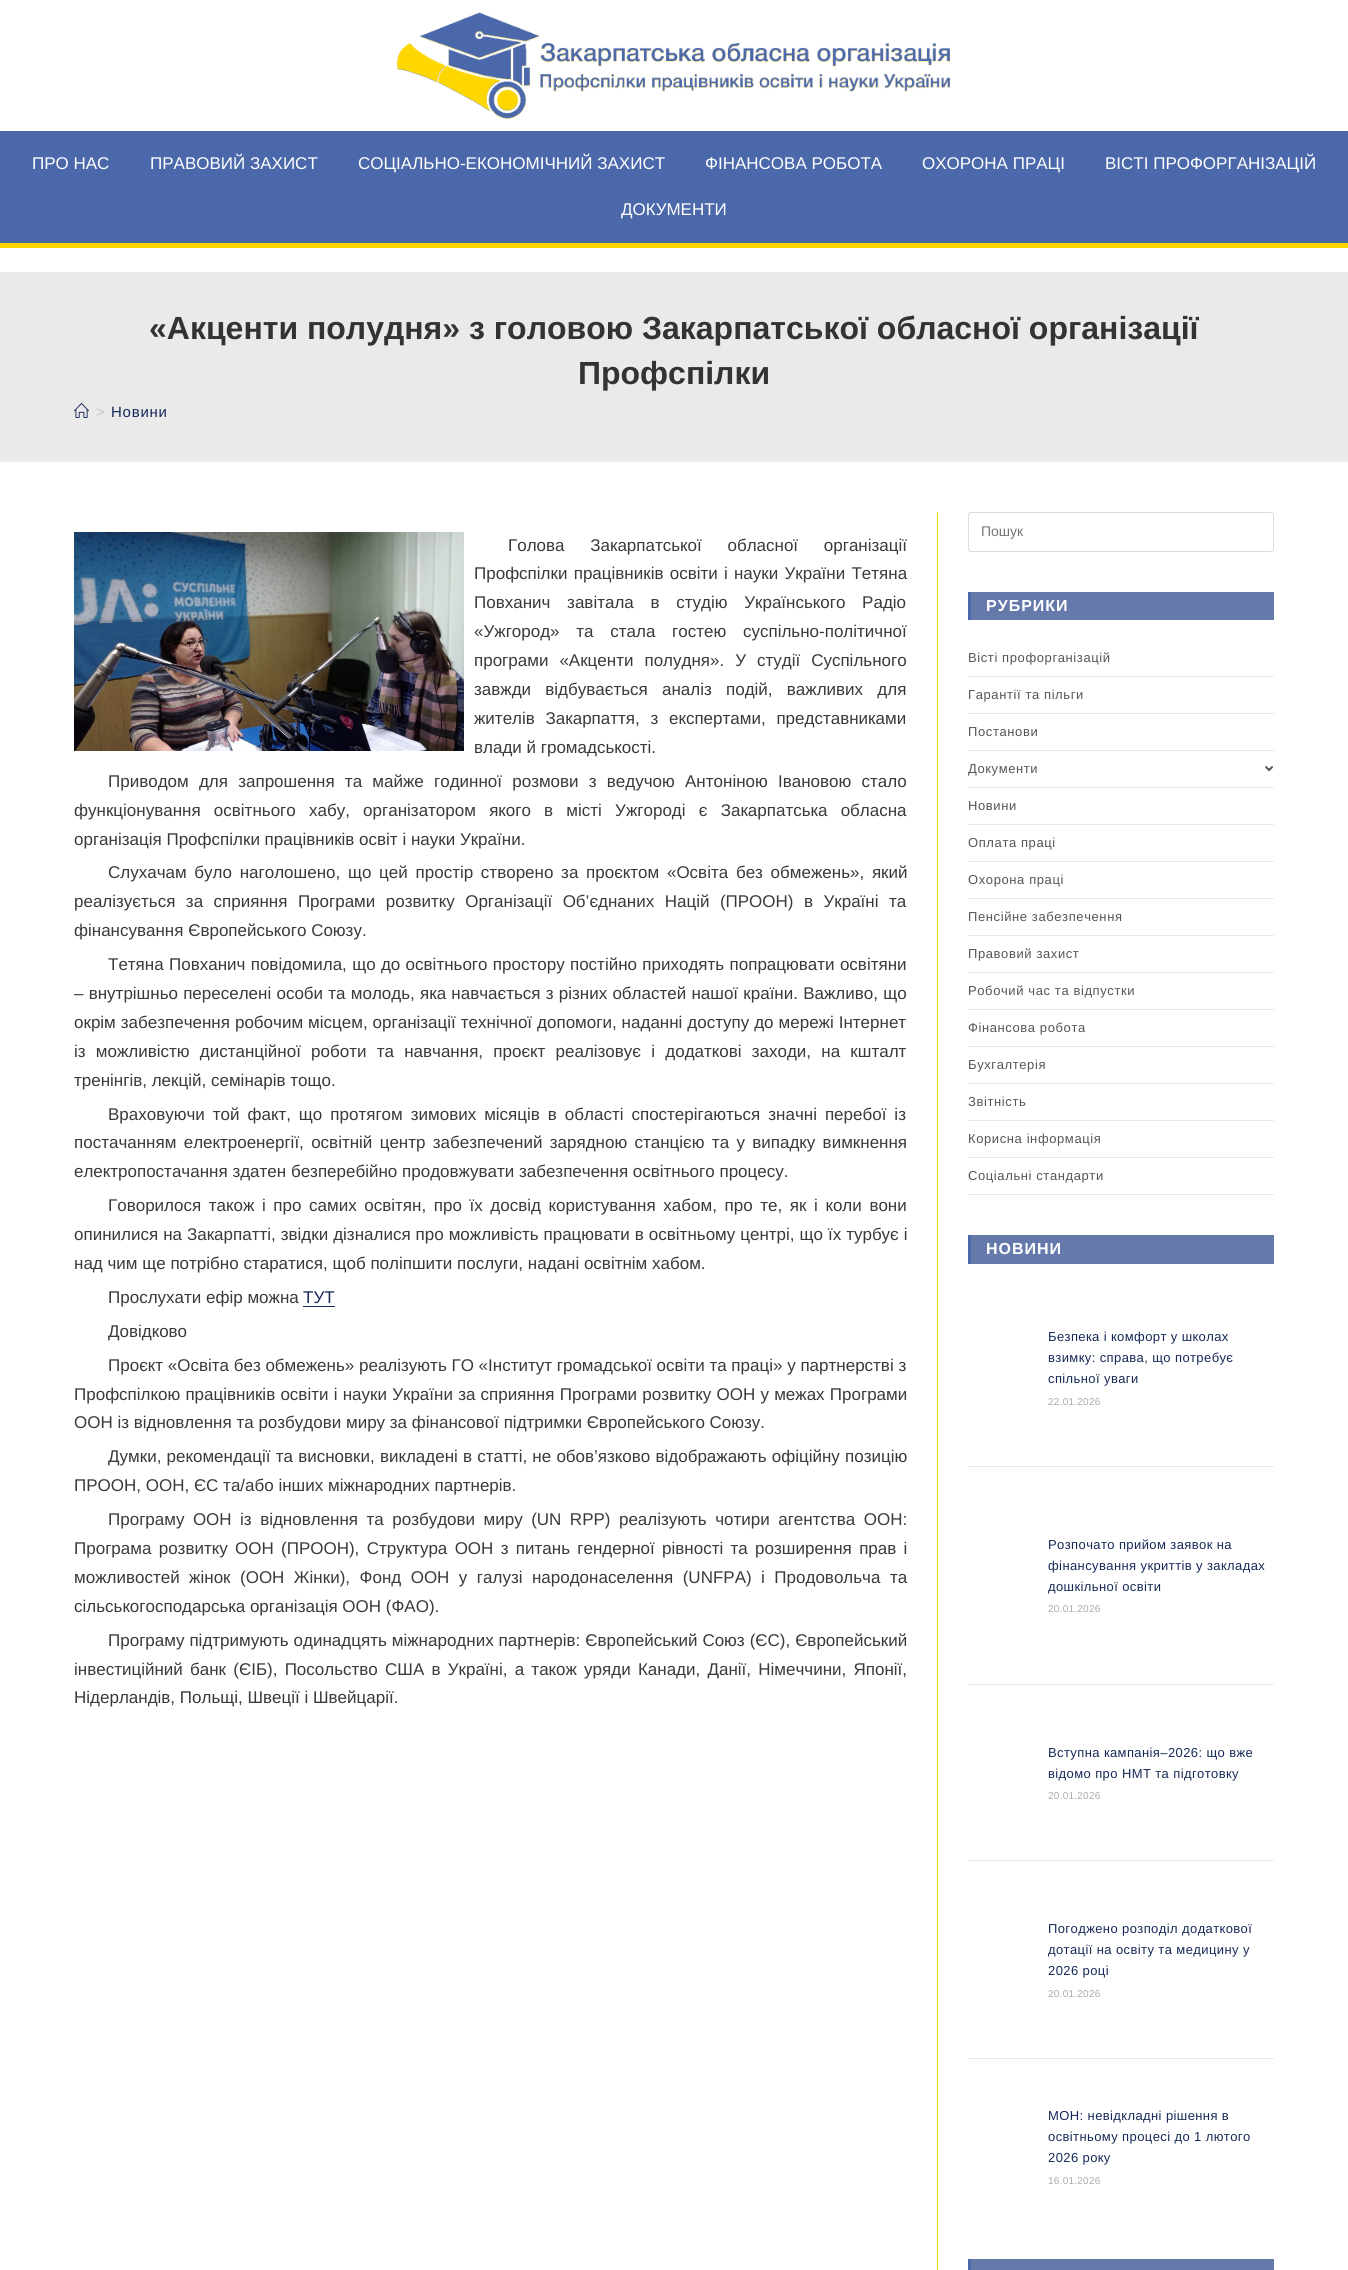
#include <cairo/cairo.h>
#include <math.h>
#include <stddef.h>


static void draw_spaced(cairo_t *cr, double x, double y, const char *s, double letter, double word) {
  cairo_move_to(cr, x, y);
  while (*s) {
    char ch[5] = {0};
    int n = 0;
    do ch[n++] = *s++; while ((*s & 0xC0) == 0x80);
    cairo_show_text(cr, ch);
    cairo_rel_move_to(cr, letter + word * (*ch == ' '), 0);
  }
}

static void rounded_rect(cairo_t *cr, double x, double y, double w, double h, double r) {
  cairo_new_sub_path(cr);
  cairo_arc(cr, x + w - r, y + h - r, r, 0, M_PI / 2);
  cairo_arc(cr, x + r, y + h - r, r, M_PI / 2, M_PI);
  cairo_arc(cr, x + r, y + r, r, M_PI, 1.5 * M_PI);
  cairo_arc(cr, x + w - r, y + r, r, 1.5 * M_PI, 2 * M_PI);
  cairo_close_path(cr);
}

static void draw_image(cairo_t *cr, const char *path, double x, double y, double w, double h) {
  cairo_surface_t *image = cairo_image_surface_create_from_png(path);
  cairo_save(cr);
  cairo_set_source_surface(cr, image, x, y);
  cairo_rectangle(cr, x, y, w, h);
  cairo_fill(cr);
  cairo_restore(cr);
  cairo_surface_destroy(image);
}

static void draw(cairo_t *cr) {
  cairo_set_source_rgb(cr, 1, 1, 1);
  cairo_paint(cr);
  draw_image(cr, "images/1.png", 396, 12, 555, 108);
  cairo_set_source_rgb(cr, 75 / 255.0, 104 / 255.0, 171 / 255.0);
  cairo_rectangle(cr, 0, 131, 1348, 112);
  cairo_fill(cr);
  cairo_set_source_rgb(cr, 1, 215 / 255.0, 0);
  cairo_rectangle(cr, 0, 243, 1348, 5);
  cairo_fill(cr);
  cairo_set_source_rgb(cr, 234 / 255.0, 234 / 255.0, 234 / 255.0);
  cairo_rectangle(cr, 0, 272, 1348, 190);
  cairo_fill(cr);
  draw_image(cr, "images/2.png", 74, 403, 15, 15);
  cairo_set_source_rgb(cr, 1, 215 / 255.0, 0);
  cairo_rectangle(cr, 937, 512, 1, 1758);
  cairo_fill(cr);
  draw_image(cr, "images/3.png", 74, 532, 390, 219);
  cairo_set_source_rgb(cr, 22 / 255.0, 41 / 255.0, 86 / 255.0);
  cairo_rectangle(cr, 303, 1306, 32, 1);
  cairo_fill(cr);
  rounded_rect(cr, 968.5, 512.5, 305, 39, 2.5);
  cairo_set_source_rgb(cr, 221 / 255.0, 221 / 255.0, 221 / 255.0);
  cairo_set_line_width(cr, 1);
  cairo_stroke(cr);
  cairo_set_source_rgb(cr, 101 / 255.0, 122 / 255.0, 171 / 255.0);
  cairo_rectangle(cr, 971, 592, 303, 28);
  cairo_fill(cr);
  cairo_set_source_rgb(cr, 75 / 255.0, 104 / 255.0, 171 / 255.0);
  cairo_rectangle(cr, 968, 592, 3, 28);
  cairo_fill(cr);
  cairo_set_source_rgb(cr, 233 / 255.0, 233 / 255.0, 233 / 255.0);
  cairo_rectangle(cr, 968, 676, 306, 1);
  cairo_fill(cr);
  cairo_rectangle(cr, 968, 713, 306, 1);
  cairo_fill(cr);
  cairo_rectangle(cr, 968, 750, 306, 1);
  cairo_fill(cr);
  cairo_rectangle(cr, 968, 787, 306, 1);
  cairo_fill(cr);
  draw_image(cr, "images/4.png", 1265, 766, 9, 6);
  cairo_rectangle(cr, 968, 824, 306, 1);
  cairo_fill(cr);
  cairo_rectangle(cr, 968, 861, 306, 1);
  cairo_fill(cr);
  cairo_rectangle(cr, 968, 898, 306, 1);
  cairo_fill(cr);
  cairo_rectangle(cr, 968, 935, 306, 1);
  cairo_fill(cr);
  cairo_rectangle(cr, 968, 972, 306, 1);
  cairo_fill(cr);
  cairo_rectangle(cr, 968, 1009, 306, 1);
  cairo_fill(cr);
  cairo_rectangle(cr, 968, 1046, 306, 1);
  cairo_fill(cr);
  cairo_rectangle(cr, 968, 1083, 306, 1);
  cairo_fill(cr);
  cairo_rectangle(cr, 968, 1120, 306, 1);
  cairo_fill(cr);
  cairo_rectangle(cr, 968, 1157, 306, 1);
  cairo_fill(cr);
  cairo_rectangle(cr, 968, 1194, 306, 1);
  cairo_fill(cr);
  cairo_set_source_rgb(cr, 101 / 255.0, 122 / 255.0, 171 / 255.0);
  cairo_rectangle(cr, 971, 1235, 303, 29);
  cairo_fill(cr);
  cairo_set_source_rgb(cr, 75 / 255.0, 104 / 255.0, 171 / 255.0);
  cairo_rectangle(cr, 968, 1235, 3, 29);
  cairo_fill(cr);
  cairo_set_source_rgb(cr, 233 / 255.0, 233 / 255.0, 233 / 255.0);
  cairo_rectangle(cr, 968, 1466, 306, 1);
  cairo_fill(cr);
  cairo_rectangle(cr, 968, 1684, 306, 1);
  cairo_fill(cr);
  cairo_rectangle(cr, 968, 1860, 306, 1);
  cairo_fill(cr);
  cairo_rectangle(cr, 968, 2058, 306, 1);
  cairo_fill(cr);
  cairo_set_source_rgb(cr, 101 / 255.0, 122 / 255.0, 171 / 255.0);
  cairo_rectangle(cr, 971, 2259, 303, 11);
  cairo_fill(cr);
  cairo_set_source_rgb(cr, 75 / 255.0, 104 / 255.0, 171 / 255.0);
  cairo_rectangle(cr, 968, 2259, 3, 11);
  cairo_fill(cr);
  cairo_select_font_face(cr, "Liberation Sans", CAIRO_FONT_SLANT_NORMAL, CAIRO_FONT_WEIGHT_NORMAL);
  cairo_set_font_size(cr, 17);
  cairo_set_source_rgb(cr, 1, 1, 1);
  cairo_move_to(cr, 32, 169);
  cairo_show_text(cr, "ПРО НАС");
  cairo_move_to(cr, 150, 169);
  cairo_show_text(cr, "ПРАВОВИЙ ЗАХИСТ");
  cairo_move_to(cr, 358, 169);
  cairo_show_text(cr, "СОЦІАЛЬНО-ЕКОНОМІЧНИЙ ЗАХИСТ");
  cairo_move_to(cr, 705, 169);
  cairo_show_text(cr, "ФІНАНСОВА РОБОТА");
  cairo_move_to(cr, 922, 169);
  cairo_show_text(cr, "ОХОРОНА ПРАЦІ");
  cairo_move_to(cr, 1105, 169);
  cairo_show_text(cr, "ВІСТІ ПРОФОРГАНІЗАЦІЙ");
  cairo_move_to(cr, 621, 215);
  cairo_show_text(cr, "ДОКУМЕНТИ");
  cairo_select_font_face(cr, "Liberation Sans", CAIRO_FONT_SLANT_NORMAL, CAIRO_FONT_WEIGHT_BOLD);
  cairo_set_font_size(cr, 32);
  cairo_set_source_rgb(cr, 51 / 255.0, 51 / 255.0, 51 / 255.0);
  cairo_move_to(cr, 149, 339);
  cairo_show_text(cr, "«Акценти полудня» з головою Закарпатської обласної організації");
  cairo_move_to(cr, 578, 384);
  cairo_show_text(cr, "Профспілки");
  cairo_select_font_face(cr, "Liberation Sans", CAIRO_FONT_SLANT_NORMAL, CAIRO_FONT_WEIGHT_NORMAL);
  cairo_set_font_size(cr, 15);
  cairo_set_source_rgb(cr, 198 / 255.0, 198 / 255.0, 198 / 255.0);
  draw_spaced(cr, 96, 417, ">", 0.75, 0);
  cairo_set_source_rgb(cr, 22 / 255.0, 41 / 255.0, 86 / 255.0);
  draw_spaced(cr, 111, 417, "Новини", 0.75, 0);
  cairo_set_font_size(cr, 17);
  cairo_set_source_rgb(cr, 58 / 255.0, 58 / 255.0, 58 / 255.0);
  draw_spaced(cr, 508, 551, "Голова Закарпатської обласної організації", 0, 21);
  draw_spaced(cr, 474, 579, "Профспілки працівників освіти і науки України Тетяна", 0, 1.5);
  draw_spaced(cr, 474, 608, "Повханич завітала в студію Українського Радіо", 0, 12);
  draw_spaced(cr, 474, 637, "«Ужгород» та стала гостею суспільно-політичної", 0, 12);
  draw_spaced(cr, 474, 666, "програми «Акценти полудня». У студії Суспільного", 0, 6.25);
  draw_spaced(cr, 474, 695, "завжди відбувається аналіз подій, важливих для", 0, 9.5);
  draw_spaced(cr, 474, 724, "жителів Закарпаття, з експертами, представниками", 0, 6);
  cairo_move_to(cr, 474, 753);
  cairo_show_text(cr, "влади й громадськості.");
  draw_spaced(cr, 108, 787, "Приводом для запрошення та майже годинної розмови з ведучою Антоніною Івановою стало", 0, 5.5);
  draw_spaced(cr, 74, 816, "функціонування освітнього хабу, організатором якого в місті Ужгороді є Закарпатська обласна", 0, 8.5);
  cairo_move_to(cr, 74, 845);
  cairo_show_text(cr, "організація Профспілки працівників освіт і науки України.");
  draw_spaced(cr, 108, 878, "Слухачам було наголошено, що цей простір створено за проєктом «Освіта без обмежень», який", 0, 3);
  draw_spaced(cr, 74, 907, "реалізується за сприяння Програми розвитку Організації Об’єднаних Націй (ПРООН) в Україні та", 0, 5.75);
  cairo_move_to(cr, 74, 936);
  cairo_show_text(cr, "фінансування Європейського Союзу.");
  draw_spaced(cr, 108, 970, "Тетяна Повханич повідомила, що до освітнього простору постійно приходять попрацювати освітяни", 0, 0.6);
  draw_spaced(cr, 74, 999, "– внутрішньо переселені особи та молодь, яка навчається з різних областей нашої країни. Важливо, що", 0, 0.5);
  draw_spaced(cr, 74, 1028, "окрім забезпечення робочим місцем, організації технічної допомоги, наданні доступу до мережі Інтернет", 0, 0.25);
  draw_spaced(cr, 74, 1057, "із можливістю дистанційної роботи та навчання, проєкт реалізовує і додаткові заходи, на кшталт", 0, 5.5);
  cairo_move_to(cr, 74, 1086);
  cairo_show_text(cr, "тренінгів, лекцій, семінарів тощо.");
  draw_spaced(cr, 108, 1120, "Враховуючи той факт, що протягом зимових місяців в області спостерігаються значні перебої із", 0, 3.25);
  draw_spaced(cr, 74, 1148, "постачанням електроенергії, освітній центр забезпечений зарядною станцією та у випадку вимкнення", 0, 2.6);
  cairo_move_to(cr, 74, 1177);
  cairo_show_text(cr, "електропостачання здатен безперебійно продовжувати забезпечення освітнього процесу.");
  draw_spaced(cr, 108, 1211, "Говорилося також і про самих освітян, про їх досвід користування хабом, про те, як і коли вони", 0, 2.9);
  draw_spaced(cr, 74, 1240, "опинилися на Закарпатті, звідки дізналися про можливість працювати в освітньому центрі, що їх турбує і", 0, 0.25);
  cairo_move_to(cr, 74, 1269);
  cairo_show_text(cr, "над чим ще потрібно старатися, щоб поліпшити послуги, надані освітнім хабом.");
  cairo_move_to(cr, 108, 1303);
  cairo_show_text(cr, "Прослухати ефір можна");
  cairo_set_source_rgb(cr, 22 / 255.0, 41 / 255.0, 86 / 255.0);
  cairo_move_to(cr, 303, 1303);
  cairo_show_text(cr, "ТУТ");
  cairo_set_source_rgb(cr, 58 / 255.0, 58 / 255.0, 58 / 255.0);
  cairo_move_to(cr, 108, 1337);
  cairo_show_text(cr, "Довідково");
  cairo_move_to(cr, 108, 1371);
  cairo_show_text(cr, "Проєкт «Освіта без обмежень» реалізують ГО «Інститут громадської освіти та праці» у партнерстві з");
  draw_spaced(cr, 74, 1400, "Профспілкою працівників освіти і науки України за сприяння Програми розвитку ООН у межах Програми", 0, 0.5);
  cairo_move_to(cr, 74, 1428);
  cairo_show_text(cr, "ООН із відновлення та розбудови миру за фінансової підтримки Європейського Союзу.");
  draw_spaced(cr, 108, 1462, "Думки, рекомендації та висновки, викладені в статті, не обов’язково відображають офіційну позицію", 0, 0.5);
  cairo_move_to(cr, 74, 1491);
  cairo_show_text(cr, "ПРООН, ООН, ЄС та/або інших міжнародних партнерів.");
  draw_spaced(cr, 108, 1525, "Програму ООН із відновлення та розбудови миру (UN RPP) реалізують чотири агентства ООН:", 0, 3.75);
  draw_spaced(cr, 74, 1554, "Програма розвитку ООН (ПРООН), Структура ООН з питань гендерної рівності та розширення прав і", 0, 2.6);
  draw_spaced(cr, 74, 1583, "можливостей жінок (ООН Жінки), Фонд ООН у галузі народонаселення (UNFPA) і Продовольча та", 0, 4.75);
  cairo_move_to(cr, 74, 1612);
  cairo_show_text(cr, "сільськогосподарська організація ООН (ФАО).");
  draw_spaced(cr, 108, 1646, "Програму підтримують одинадцять міжнародних партнерів: Європейський Союз (ЄС), Європейський", 0, 0.25);
  draw_spaced(cr, 74, 1675, "інвестиційний банк (ЄІБ), Посольство США в Україні, а також уряди Канади, Данії, Німеччини, Японії,", 0, 2.5);
  cairo_move_to(cr, 74, 1703);
  cairo_show_text(cr, "Нідерландів, Польщі, Швеції і Швейцарії.");
  cairo_set_font_size(cr, 14);
  cairo_set_source_rgb(cr, 117 / 255.0, 117 / 255.0, 117 / 255.0);
  cairo_move_to(cr, 981, 536);
  cairo_show_text(cr, "Пошук");
  cairo_select_font_face(cr, "Liberation Sans", CAIRO_FONT_SLANT_NORMAL, CAIRO_FONT_WEIGHT_BOLD);
  cairo_set_font_size(cr, 16);
  cairo_set_source_rgb(cr, 1, 1, 1);
  draw_spaced(cr, 986, 611, "РУБРИКИ", 1, 0);
  cairo_select_font_face(cr, "Liberation Sans", CAIRO_FONT_SLANT_NORMAL, CAIRO_FONT_WEIGHT_NORMAL);
  cairo_set_font_size(cr, 13);
  cairo_set_source_rgb(cr, 85 / 255.0, 85 / 255.0, 85 / 255.0);
  draw_spaced(cr, 968, 662, "Вісті профорганізацій", 0.6, 0);
  draw_spaced(cr, 968, 699, "Гарантії та пільги", 0.6, 0);
  draw_spaced(cr, 968, 736, "Постанови", 0.6, 0);
  draw_spaced(cr, 968, 773, "Документи", 0.6, 0);
  draw_spaced(cr, 968, 810, "Новини", 0.6, 0);
  draw_spaced(cr, 968, 847, "Оплата праці", 0.6, 0);
  draw_spaced(cr, 968, 884, "Охорона праці", 0.6, 0);
  draw_spaced(cr, 968, 921, "Пенсійне забезпечення", 0.6, 0);
  draw_spaced(cr, 968, 958, "Правовий захист", 0.6, 0);
  draw_spaced(cr, 968, 995, "Робочий час та відпустки", 0.6, 0);
  draw_spaced(cr, 968, 1032, "Фінансова робота", 0.6, 0);
  draw_spaced(cr, 968, 1069, "Бухгалтерія", 0.6, 0);
  draw_spaced(cr, 968, 1106, "Звітність", 0.6, 0);
  draw_spaced(cr, 968, 1143, "Корисна інформація", 0.6, 0);
  draw_spaced(cr, 968, 1180, "Соціальні стандарти", 0.6, 0);
  cairo_select_font_face(cr, "Liberation Sans", CAIRO_FONT_SLANT_NORMAL, CAIRO_FONT_WEIGHT_BOLD);
  cairo_set_font_size(cr, 16);
  cairo_set_source_rgb(cr, 1, 1, 1);
  draw_spaced(cr, 986, 1254, "НОВИНИ", 1, 0);
  cairo_select_font_face(cr, "Liberation Sans", CAIRO_FONT_SLANT_NORMAL, CAIRO_FONT_WEIGHT_NORMAL);
  cairo_set_font_size(cr, 13);
  cairo_set_source_rgb(cr, 22 / 255.0, 41 / 255.0, 86 / 255.0);
  draw_spaced(cr, 1048, 1341, "Безпека і комфорт у школах", 0.4, 0);
  draw_spaced(cr, 1048, 1362, "взимку: справа, що потребує", 0.4, 0);
  draw_spaced(cr, 1048, 1383, "спільної уваги", 0.4, 0);
  cairo_set_font_size(cr, 10);
  cairo_set_source_rgb(cr, 170 / 255.0, 170 / 255.0, 170 / 255.0);
  draw_spaced(cr, 1048, 1405, "22.01.2026", 0.25, 0);
  cairo_set_font_size(cr, 13);
  cairo_set_source_rgb(cr, 22 / 255.0, 41 / 255.0, 86 / 255.0);
  draw_spaced(cr, 1048, 1549, "Розпочато прийом заявок на", 0.4, 0);
  draw_spaced(cr, 1048, 1570, "фінансування укриттів у закладах", 0.4, 0);
  draw_spaced(cr, 1048, 1591, "дошкільної освіти", 0.4, 0);
  cairo_set_font_size(cr, 10);
  cairo_set_source_rgb(cr, 170 / 255.0, 170 / 255.0, 170 / 255.0);
  draw_spaced(cr, 1048, 1612, "20.01.2026", 0.25, 0);
  cairo_set_font_size(cr, 13);
  cairo_set_source_rgb(cr, 22 / 255.0, 41 / 255.0, 86 / 255.0);
  draw_spaced(cr, 1048, 1757, "Вступна кампанія–2026: що вже", 0.4, 0);
  draw_spaced(cr, 1048, 1778, "відомо про НМТ та підготовку", 0.4, 0);
  cairo_set_font_size(cr, 10);
  cairo_set_source_rgb(cr, 170 / 255.0, 170 / 255.0, 170 / 255.0);
  draw_spaced(cr, 1048, 1799, "20.01.2026", 0.25, 0);
  cairo_set_font_size(cr, 13);
  cairo_set_source_rgb(cr, 22 / 255.0, 41 / 255.0, 86 / 255.0);
  draw_spaced(cr, 1048, 1933, "Погоджено розподіл додаткової", 0.4, 0);
  draw_spaced(cr, 1048, 1954, "дотації на освіту та медицину у", 0.4, 0);
  draw_spaced(cr, 1048, 1975, "2026 році", 0.4, 0);
  cairo_set_font_size(cr, 10);
  cairo_set_source_rgb(cr, 170 / 255.0, 170 / 255.0, 170 / 255.0);
  draw_spaced(cr, 1048, 1997, "20.01.2026", 0.25, 0);
  cairo_set_font_size(cr, 13);
  cairo_set_source_rgb(cr, 22 / 255.0, 41 / 255.0, 86 / 255.0);
  draw_spaced(cr, 1048, 2120, "МОН: невідкладні рішення в", 0.4, 0);
  draw_spaced(cr, 1048, 2141, "освітньому процесі до 1 лютого", 0.4, 0);
  draw_spaced(cr, 1048, 2162, "2026 року", 0.4, 0);
  cairo_set_font_size(cr, 10);
  cairo_set_source_rgb(cr, 170 / 255.0, 170 / 255.0, 170 / 255.0);
  draw_spaced(cr, 1048, 2184, "16.01.2026", 0.25, 0);
}

int main(void) {
  cairo_surface_t *surface = cairo_image_surface_create(CAIRO_FORMAT_RGB24, 1348, 2270);
  cairo_t *cr = cairo_create(surface);
  cairo_font_options_t *options = cairo_font_options_create();
  cairo_font_options_set_hint_metrics(options, CAIRO_HINT_METRICS_OFF);
  cairo_font_options_set_hint_style(options, CAIRO_HINT_STYLE_NONE);
  cairo_set_font_options(cr, options);
  cairo_set_miter_limit(cr, 4);
  draw(cr);
  cairo_surface_write_to_png(surface, "out.png");
  cairo_font_options_destroy(options);
  cairo_destroy(cr);
  cairo_surface_destroy(surface);
  return 0;
}
